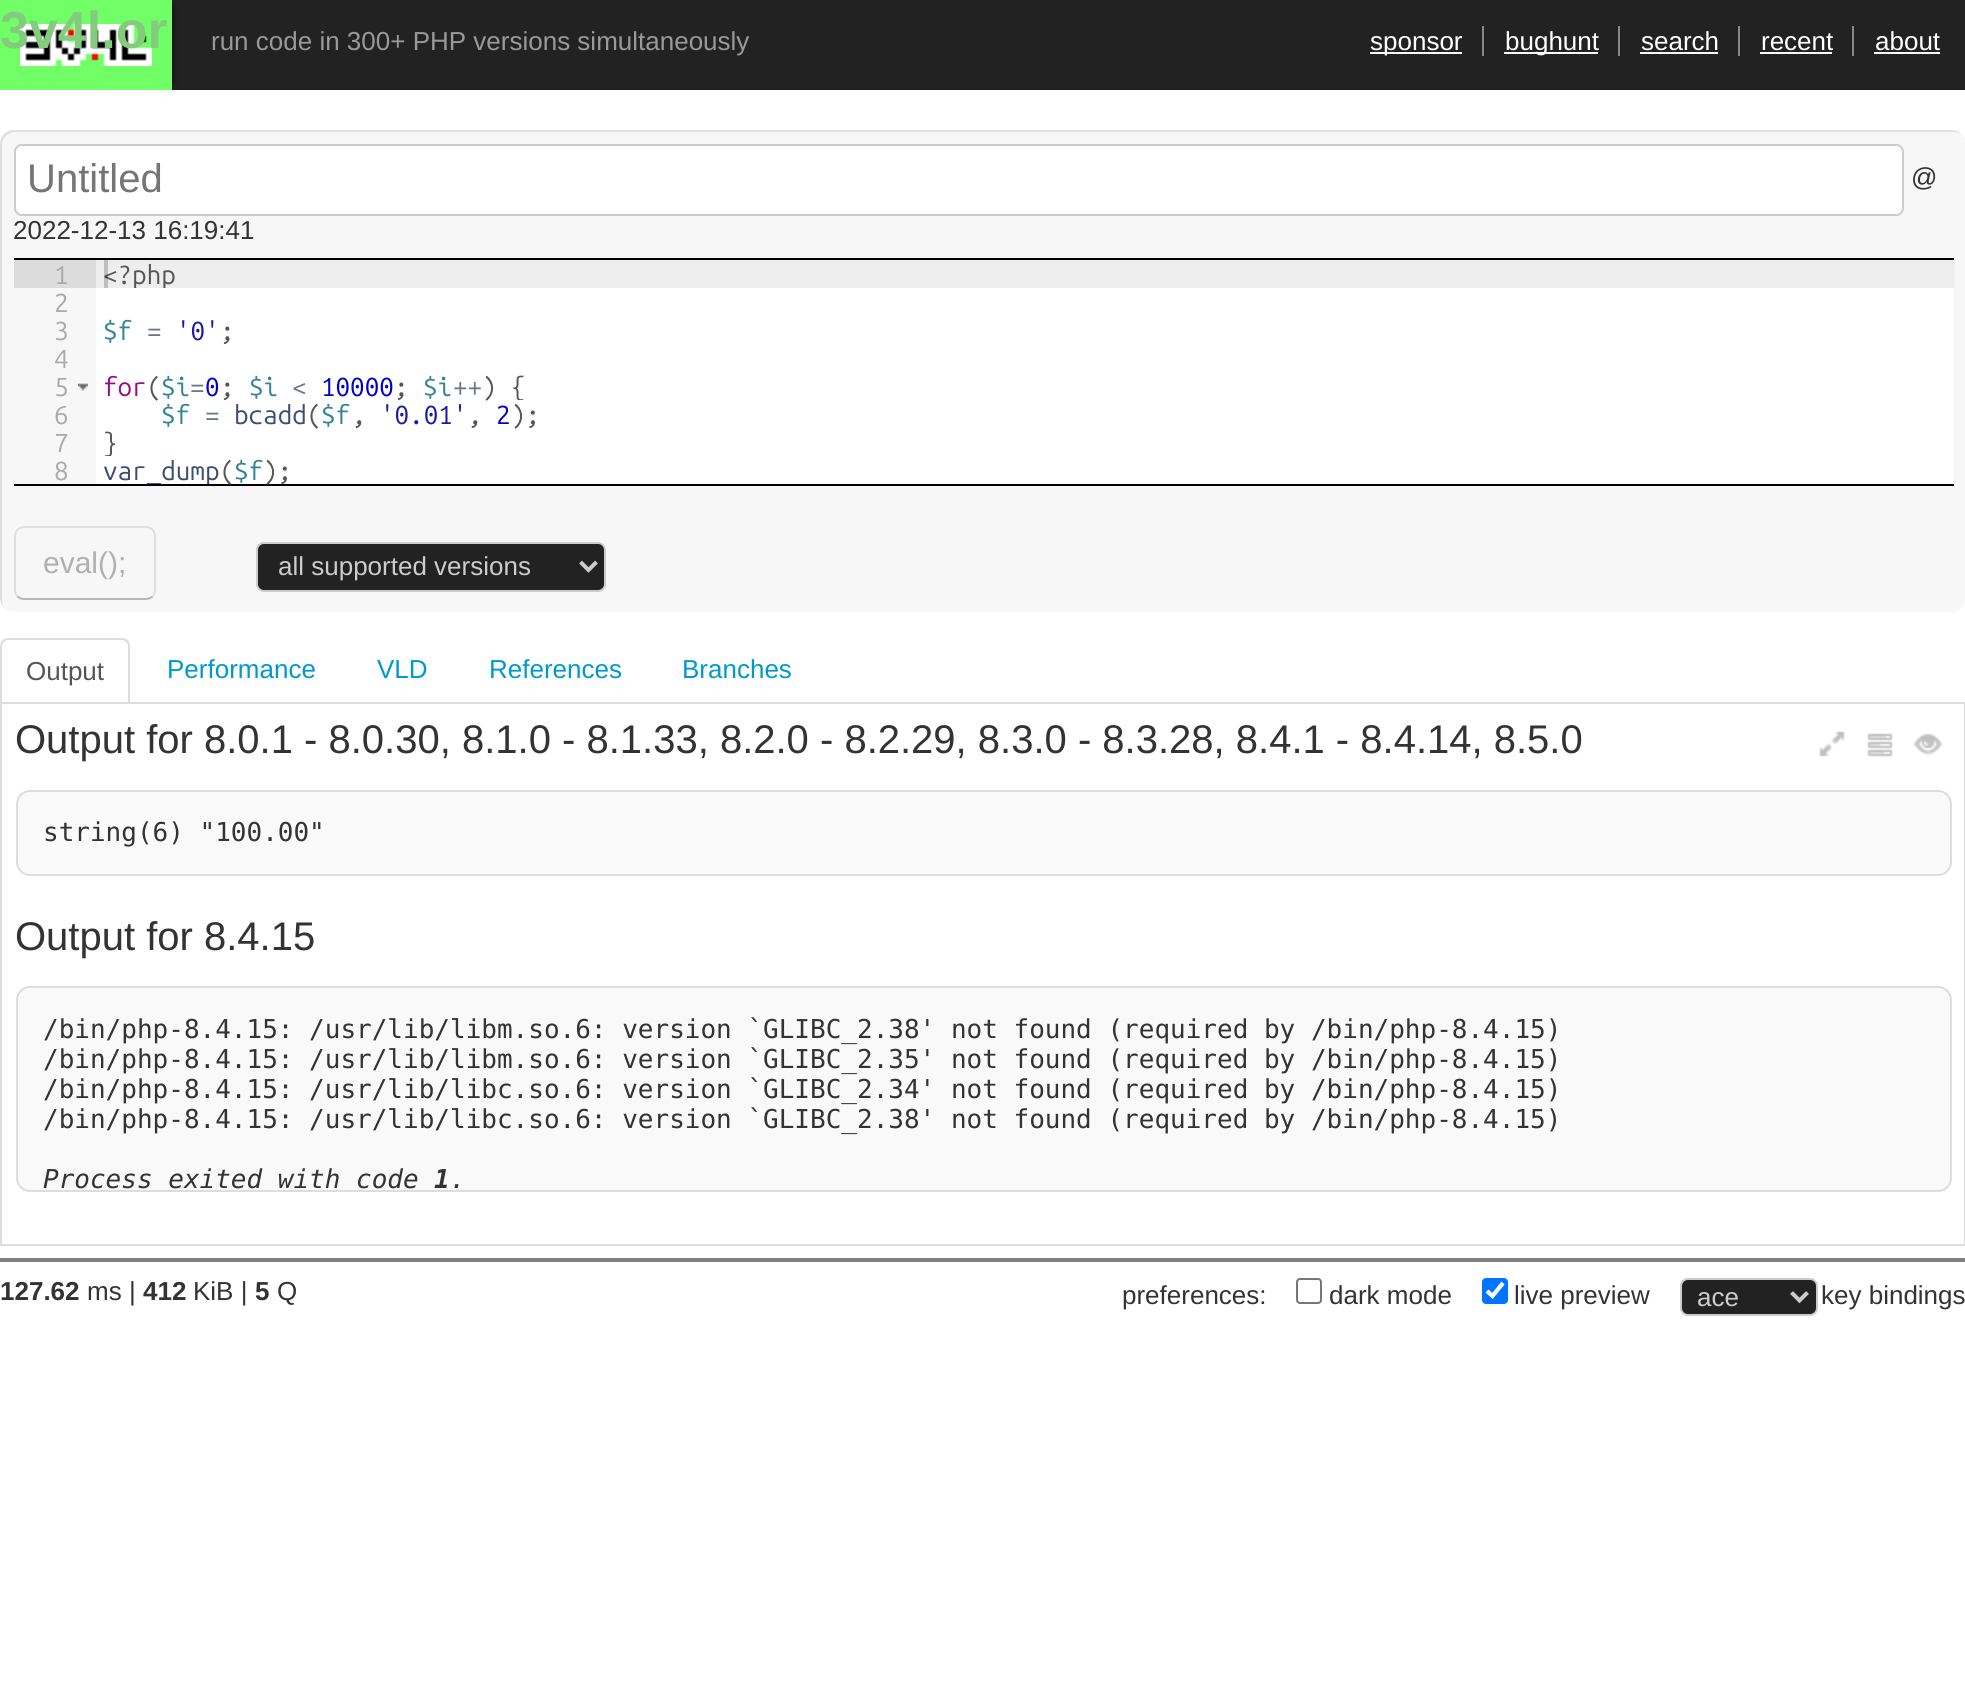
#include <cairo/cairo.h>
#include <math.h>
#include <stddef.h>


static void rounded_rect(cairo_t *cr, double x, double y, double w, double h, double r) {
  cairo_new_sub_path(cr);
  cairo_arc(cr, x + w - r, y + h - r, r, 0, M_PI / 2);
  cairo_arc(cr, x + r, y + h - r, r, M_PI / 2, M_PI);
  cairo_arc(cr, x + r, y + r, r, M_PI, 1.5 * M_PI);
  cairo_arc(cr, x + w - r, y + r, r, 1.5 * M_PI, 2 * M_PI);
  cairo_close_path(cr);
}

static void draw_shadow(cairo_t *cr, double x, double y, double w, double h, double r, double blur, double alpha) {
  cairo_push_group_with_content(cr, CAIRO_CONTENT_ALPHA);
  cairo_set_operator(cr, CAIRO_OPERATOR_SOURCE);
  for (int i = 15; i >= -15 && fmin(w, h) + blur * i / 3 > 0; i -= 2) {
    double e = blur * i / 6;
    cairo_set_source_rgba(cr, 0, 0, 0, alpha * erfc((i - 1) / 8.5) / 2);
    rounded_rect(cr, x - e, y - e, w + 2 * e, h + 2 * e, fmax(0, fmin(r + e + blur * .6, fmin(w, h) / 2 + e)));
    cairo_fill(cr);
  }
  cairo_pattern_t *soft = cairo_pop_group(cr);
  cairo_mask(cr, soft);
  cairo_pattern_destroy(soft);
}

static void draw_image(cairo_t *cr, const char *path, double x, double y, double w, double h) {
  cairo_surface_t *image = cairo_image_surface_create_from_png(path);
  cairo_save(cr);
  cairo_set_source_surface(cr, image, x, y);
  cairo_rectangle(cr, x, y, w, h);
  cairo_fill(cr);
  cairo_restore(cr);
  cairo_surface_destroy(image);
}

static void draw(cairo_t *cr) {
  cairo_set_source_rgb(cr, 1, 1, 1);
  cairo_paint(cr);
  cairo_set_source_rgb(cr, 34 / 255.0, 34 / 255.0, 34 / 255.0);
  cairo_rectangle(cr, 172, 0, 1793, 90);
  cairo_fill(cr);
  cairo_set_source_rgb(cr, 0, 0, 0);
  draw_shadow(cr, 12, 6, 160, 78, 0, 3, 1);
  cairo_set_source_rgb(cr, 112 / 255.0, 1, 102 / 255.0);
  cairo_rectangle(cr, 0, 0, 172, 90);
  cairo_fill(cr);
  draw_image(cr, "images/1.png", 20, 24, 132, 42);
  cairo_set_source_rgb(cr, 1, 1, 1);
  cairo_rectangle(cr, 1370, 52, 92, 2);
  cairo_fill(cr);
  cairo_set_source_rgb(cr, 136 / 255.0, 136 / 255.0, 136 / 255.0);
  cairo_rectangle(cr, 1482, 26, 2, 30);
  cairo_fill(cr);
  cairo_set_source_rgb(cr, 1, 1, 1);
  cairo_rectangle(cr, 1504, 52, 94, 2);
  cairo_fill(cr);
  cairo_set_source_rgb(cr, 136 / 255.0, 136 / 255.0, 136 / 255.0);
  cairo_rectangle(cr, 1618, 26, 2, 30);
  cairo_fill(cr);
  cairo_set_source_rgb(cr, 1, 1, 1);
  cairo_rectangle(cr, 1640, 52, 78, 2);
  cairo_fill(cr);
  cairo_set_source_rgb(cr, 136 / 255.0, 136 / 255.0, 136 / 255.0);
  cairo_rectangle(cr, 1738, 26, 2, 30);
  cairo_fill(cr);
  cairo_set_source_rgb(cr, 1, 1, 1);
  cairo_rectangle(cr, 1760, 52, 72, 2);
  cairo_fill(cr);
  cairo_set_source_rgb(cr, 136 / 255.0, 136 / 255.0, 136 / 255.0);
  cairo_rectangle(cr, 1852, 26, 2, 30);
  cairo_fill(cr);
  cairo_set_source_rgb(cr, 1, 1, 1);
  cairo_rectangle(cr, 1874, 52, 66, 2);
  cairo_fill(cr);
  cairo_set_source_rgb(cr, 247 / 255.0, 247 / 255.0, 247 / 255.0);
  rounded_rect(cr, 0, 130, 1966, 482, 14);
  cairo_fill(cr);
  cairo_set_source_rgba(cr, 0, 0, 0, 0.1);
  cairo_new_path(cr);
  cairo_move_to(cr, 15, 132);
  cairo_line_to(cr, 1955, 132);
  cairo_curve_to(cr, 1957, 132, 1960, 133, 1962, 134);
  cairo_curve_to(cr, 1959, 132, 1956, 130, 1952, 130);
  cairo_line_to(cr, 14, 130);
  cairo_curve_to(cr, 6, 130, 0, 136, 0, 144);
  cairo_line_to(cr, 0, 598);
  cairo_curve_to(cr, 0, 602, 2, 605, 4, 608);
  cairo_curve_to(cr, 3, 606, 2, 603, 2, 601);
  cairo_line_to(cr, 2, 145);
  cairo_curve_to(cr, 2, 138, 8, 132, 15, 132);
  cairo_close_path(cr);
  cairo_fill(cr);
  cairo_set_source_rgb(cr, 1, 1, 1);
  rounded_rect(cr, 15, 145, 1888, 70, 7);
  cairo_fill_preserve(cr);
  cairo_set_source_rgb(cr, 204 / 255.0, 204 / 255.0, 204 / 255.0);
  cairo_stroke(cr);
  cairo_set_source_rgb(cr, 1, 1, 1);
  cairo_rectangle(cr, 96, 288, 1858, 196);
  cairo_fill(cr);
  cairo_set_source_rgb(cr, 0, 0, 0);
  cairo_rectangle(cr, 14, 258, 1940, 2);
  cairo_fill(cr);
  cairo_rectangle(cr, 14, 484, 1940, 2);
  cairo_fill(cr);
  cairo_set_source_rgb(cr, 220 / 255.0, 220 / 255.0, 220 / 255.0);
  cairo_rectangle(cr, 14, 260, 82, 28);
  cairo_fill(cr);
  draw_image(cr, "images/2.png", 78, 383, 10, 8);
  cairo_set_source_rgb(cr, 237 / 255.0, 237 / 255.0, 237 / 255.0);
  cairo_rectangle(cr, 96, 260, 1858, 28);
  cairo_fill(cr);
  cairo_new_path(cr);
  cairo_move_to(cr, 152.5, 596.5);
  cairo_curve_to(cr, 150.5, 598, 148.5, 599, 146, 599);
  cairo_line_to(cr, 24, 599);
  cairo_curve_to(cr, 21.5, 599, 19.5, 598, 17.5, 596.5);
  cairo_set_source_rgb(cr, 183 / 255.0, 183 / 255.0, 183 / 255.0);
  cairo_stroke(cr);
  cairo_new_path(cr);
  cairo_move_to(cr, 17.5, 596.5);
  cairo_curve_to(cr, 16, 594.5, 15, 592.5, 15, 590);
  cairo_line_to(cr, 15, 536);
  cairo_curve_to(cr, 15, 533.5, 16, 531.5, 17.5, 529.5);
  cairo_curve_to(cr, 19.5, 528, 21.5, 527, 24, 527);
  cairo_line_to(cr, 146, 527);
  cairo_curve_to(cr, 148.5, 527, 150.5, 528, 152.5, 529.5);
  cairo_curve_to(cr, 154, 531.5, 155, 533.5, 155, 536);
  cairo_line_to(cr, 155, 590);
  cairo_curve_to(cr, 155, 592.5, 154, 594.5, 152.5, 596.5);
  cairo_set_source_rgba(cr, 0, 0, 0, 0.1);
  cairo_stroke(cr);
  cairo_set_source_rgb(cr, 34 / 255.0, 34 / 255.0, 34 / 255.0);
  rounded_rect(cr, 257, 543, 348, 48, 7);
  cairo_fill_preserve(cr);
  cairo_set_source_rgb(cr, 204 / 255.0, 204 / 255.0, 204 / 255.0);
  cairo_stroke(cr);
  cairo_new_path(cr);
  cairo_move_to(cr, 580.5, 562);
  cairo_line_to(cr, 588.5, 570);
  cairo_line_to(cr, 596.5, 562);
  cairo_set_line_width(cr, 4);
  cairo_stroke(cr);
  cairo_set_source_rgb(cr, 221 / 255.0, 221 / 255.0, 221 / 255.0);
  cairo_new_path(cr);
  cairo_move_to(cr, 8, 638);
  cairo_curve_to(cr, 6, 638, 4, 639, 2, 640);
  cairo_line_to(cr, 4, 642);
  cairo_line_to(cr, 7, 640);
  cairo_line_to(cr, 123, 640);
  cairo_line_to(cr, 126, 642);
  cairo_line_to(cr, 128, 640);
  cairo_curve_to(cr, 126, 639, 124, 638, 122, 638);
  cairo_close_path(cr);
  cairo_fill(cr);
  cairo_new_path(cr);
  cairo_move_to(cr, 130, 704);
  cairo_line_to(cr, 130, 646);
  cairo_curve_to(cr, 130, 644, 129, 642, 128, 640);
  cairo_line_to(cr, 126, 642);
  cairo_curve_to(cr, 127, 643, 128, 644, 128, 646);
  cairo_line_to(cr, 128, 702);
  cairo_close_path(cr);
  cairo_fill(cr);
  cairo_new_path(cr);
  cairo_move_to(cr, 0, 704);
  cairo_line_to(cr, 2, 702);
  cairo_line_to(cr, 2, 646);
  cairo_curve_to(cr, 2, 644, 3, 643, 4, 642);
  cairo_line_to(cr, 2, 640);
  cairo_curve_to(cr, 1, 642, 0, 644, 0, 646);
  cairo_close_path(cr);
  cairo_fill(cr);
  cairo_rectangle(cr, 1, 703, 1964, 542);
  cairo_set_line_width(cr, 2);
  cairo_stroke(cr);
  cairo_set_source_rgb(cr, 249 / 255.0, 249 / 255.0, 249 / 255.0);
  rounded_rect(cr, 17, 791, 1934, 84, 13);
  cairo_fill_preserve(cr);
  cairo_set_source_rgb(cr, 221 / 255.0, 221 / 255.0, 221 / 255.0);
  cairo_stroke(cr);
  cairo_set_source_rgb(cr, 249 / 255.0, 249 / 255.0, 249 / 255.0);
  rounded_rect(cr, 17, 987, 1934, 204, 13);
  cairo_fill_preserve(cr);
  cairo_set_source_rgb(cr, 221 / 255.0, 221 / 255.0, 221 / 255.0);
  cairo_stroke(cr);
  draw_image(cr, "images/3.png", 1819, 731, 26, 26);
  draw_image(cr, "images/4.png", 1867, 733, 26, 24);
  draw_image(cr, "images/5.png", 1914, 733, 28, 22);
  cairo_set_source_rgb(cr, 128 / 255.0, 128 / 255.0, 128 / 255.0);
  cairo_rectangle(cr, 0, 1258, 1965, 4);
  cairo_fill(cr);
  rounded_rect(cr, 1297, 1279, 24, 24, 3);
  cairo_set_source_rgb(cr, 118 / 255.0, 118 / 255.0, 118 / 255.0);
  cairo_stroke(cr);
  cairo_set_source_rgb(cr, 0, 117 / 255.0, 1);
  rounded_rect(cr, 1482, 1278, 26, 26, 4);
  cairo_fill(cr);
  cairo_new_path(cr);
  cairo_move_to(cr, 1487, 1291);
  cairo_line_to(cr, 1492.5, 1296);
  cairo_line_to(cr, 1503, 1283);
  cairo_set_source_rgb(cr, 1, 1, 1);
  cairo_set_line_width(cr, 4.2);
  cairo_stroke(cr);
  cairo_set_source_rgb(cr, 34 / 255.0, 34 / 255.0, 34 / 255.0);
  rounded_rect(cr, 1681, 1279, 136, 36, 7);
  cairo_fill_preserve(cr);
  cairo_set_source_rgb(cr, 204 / 255.0, 204 / 255.0, 204 / 255.0);
  cairo_set_line_width(cr, 2);
  cairo_stroke(cr);
  cairo_new_path(cr);
  cairo_move_to(cr, 1791.5, 1292.5);
  cairo_line_to(cr, 1799.5, 1300.5);
  cairo_line_to(cr, 1807.5, 1292.5);
  cairo_set_line_width(cr, 4);
  cairo_stroke(cr);
  cairo_select_font_face(cr, "Liberation Sans", CAIRO_FONT_SLANT_NORMAL, CAIRO_FONT_WEIGHT_BOLD);
  cairo_set_font_size(cr, 52);
  cairo_set_source_rgb(cr, 132 / 255.0, 203 / 255.0, 126 / 255.0);
  cairo_move_to(cr, 0, 48);
  cairo_show_text(cr, "3v4l.or");
  cairo_select_font_face(cr, "Liberation Sans", CAIRO_FONT_SLANT_NORMAL, CAIRO_FONT_WEIGHT_NORMAL);
  cairo_set_font_size(cr, 26);
  cairo_set_source_rgb(cr, 153 / 255.0, 153 / 255.0, 153 / 255.0);
  cairo_move_to(cr, 211, 50);
  cairo_show_text(cr, "run code in 300+ PHP versions simultaneously");
  cairo_set_source_rgb(cr, 1, 1, 1);
  cairo_move_to(cr, 1370, 50);
  cairo_show_text(cr, "sponsor");
  cairo_move_to(cr, 1505, 50);
  cairo_show_text(cr, "bughunt");
  cairo_move_to(cr, 1641, 50);
  cairo_show_text(cr, "search");
  cairo_move_to(cr, 1761, 50);
  cairo_show_text(cr, "recent");
  cairo_move_to(cr, 1875, 50);
  cairo_show_text(cr, "about");
  cairo_set_font_size(cr, 40);
  cairo_set_source_rgb(cr, 117 / 255.0, 117 / 255.0, 117 / 255.0);
  cairo_move_to(cr, 27, 192);
  cairo_show_text(cr, "Untitled");
  cairo_set_font_size(cr, 26);
  cairo_set_source_rgb(cr, 51 / 255.0, 51 / 255.0, 51 / 255.0);
  cairo_move_to(cr, 1911, 186);
  cairo_show_text(cr, "@");
  cairo_move_to(cr, 13, 239);
  cairo_show_text(cr, "2022-12-13 16:19:41");
  cairo_select_font_face(cr, "Ubuntu Mono", CAIRO_FONT_SLANT_NORMAL, CAIRO_FONT_WEIGHT_NORMAL);
  cairo_set_source_rgb(cr, 170 / 255.0, 170 / 255.0, 170 / 255.0);
  cairo_move_to(cr, 54, 284);
  cairo_show_text(cr, "1");
  cairo_move_to(cr, 54, 312);
  cairo_show_text(cr, "2");
  cairo_move_to(cr, 54, 340);
  cairo_show_text(cr, "3");
  cairo_move_to(cr, 54, 368);
  cairo_show_text(cr, "4");
  cairo_move_to(cr, 54, 396);
  cairo_show_text(cr, "5");
  cairo_move_to(cr, 54, 424);
  cairo_show_text(cr, "6");
  cairo_move_to(cr, 54, 452);
  cairo_show_text(cr, "7");
  cairo_move_to(cr, 54, 480);
  cairo_show_text(cr, "8");
  cairo_save(cr);
  cairo_rectangle(cr, 104, 260, 1850, 28);
  cairo_clip(cr);
  cairo_set_source_rgb(cr, 85 / 255.0, 85 / 255.0, 85 / 255.0);
  cairo_move_to(cr, 103, 284);
  cairo_show_text(cr, "<?php");
  cairo_restore(cr);
  cairo_set_source_rgba(cr, 0, 0, 0, 0.2);
  cairo_rectangle(cr, 104, 260, 4, 28);
  cairo_fill(cr);
  cairo_set_source_rgb(cr, 49 / 255.0, 132 / 255.0, 149 / 255.0);
  cairo_move_to(cr, 103, 340);
  cairo_show_text(cr, "$f");
  cairo_set_source_rgb(cr, 104 / 255.0, 118 / 255.0, 135 / 255.0);
  cairo_move_to(cr, 147, 340);
  cairo_show_text(cr, "=");
  cairo_set_source_rgb(cr, 26 / 255.0, 26 / 255.0, 166 / 255.0);
  cairo_move_to(cr, 176, 340);
  cairo_show_text(cr, "'0'");
  cairo_set_source_rgb(cr, 85 / 255.0, 85 / 255.0, 85 / 255.0);
  cairo_move_to(cr, 220, 340);
  cairo_show_text(cr, ";");
  cairo_set_source_rgb(cr, 147 / 255.0, 15 / 255.0, 128 / 255.0);
  cairo_move_to(cr, 103, 396);
  cairo_show_text(cr, "for");
  cairo_set_source_rgb(cr, 85 / 255.0, 85 / 255.0, 85 / 255.0);
  cairo_move_to(cr, 147, 396);
  cairo_show_text(cr, "(");
  cairo_set_source_rgb(cr, 49 / 255.0, 132 / 255.0, 149 / 255.0);
  cairo_move_to(cr, 161, 396);
  cairo_show_text(cr, "$i");
  cairo_set_source_rgb(cr, 104 / 255.0, 118 / 255.0, 135 / 255.0);
  cairo_move_to(cr, 190, 396);
  cairo_show_text(cr, "=");
  cairo_set_source_rgb(cr, 0, 0, 205 / 255.0);
  cairo_move_to(cr, 205, 396);
  cairo_show_text(cr, "0");
  cairo_set_source_rgb(cr, 85 / 255.0, 85 / 255.0, 85 / 255.0);
  cairo_move_to(cr, 220, 396);
  cairo_show_text(cr, ";");
  cairo_set_source_rgb(cr, 49 / 255.0, 132 / 255.0, 149 / 255.0);
  cairo_move_to(cr, 249, 396);
  cairo_show_text(cr, "$i");
  cairo_set_source_rgb(cr, 104 / 255.0, 118 / 255.0, 135 / 255.0);
  cairo_move_to(cr, 292, 396);
  cairo_show_text(cr, "<");
  cairo_set_source_rgb(cr, 0, 0, 205 / 255.0);
  cairo_move_to(cr, 321, 396);
  cairo_show_text(cr, "10000");
  cairo_set_source_rgb(cr, 85 / 255.0, 85 / 255.0, 85 / 255.0);
  cairo_move_to(cr, 394, 396);
  cairo_show_text(cr, ";");
  cairo_set_source_rgb(cr, 49 / 255.0, 132 / 255.0, 149 / 255.0);
  cairo_move_to(cr, 423, 396);
  cairo_show_text(cr, "$i");
  cairo_set_source_rgb(cr, 104 / 255.0, 118 / 255.0, 135 / 255.0);
  cairo_move_to(cr, 453, 396);
  cairo_show_text(cr, "++");
  cairo_set_source_rgb(cr, 85 / 255.0, 85 / 255.0, 85 / 255.0);
  cairo_move_to(cr, 482, 396);
  cairo_show_text(cr, ")");
  cairo_save(cr);
  cairo_rectangle(cr, 104, 372, 1850, 28);
  cairo_clip(cr);
  cairo_move_to(cr, 511, 396);
  cairo_show_text(cr, "{");
  cairo_restore(cr);
  cairo_set_source_rgb(cr, 49 / 255.0, 132 / 255.0, 149 / 255.0);
  cairo_move_to(cr, 161, 424);
  cairo_show_text(cr, "$f");
  cairo_set_source_rgb(cr, 104 / 255.0, 118 / 255.0, 135 / 255.0);
  cairo_move_to(cr, 205, 424);
  cairo_show_text(cr, "=");
  cairo_set_source_rgb(cr, 60 / 255.0, 76 / 255.0, 114 / 255.0);
  cairo_move_to(cr, 234, 424);
  cairo_show_text(cr, "bcadd");
  cairo_set_source_rgb(cr, 85 / 255.0, 85 / 255.0, 85 / 255.0);
  cairo_move_to(cr, 307, 424);
  cairo_show_text(cr, "(");
  cairo_set_source_rgb(cr, 49 / 255.0, 132 / 255.0, 149 / 255.0);
  cairo_move_to(cr, 321, 424);
  cairo_show_text(cr, "$f");
  cairo_set_source_rgb(cr, 26 / 255.0, 26 / 255.0, 166 / 255.0);
  cairo_move_to(cr, 380, 424);
  cairo_show_text(cr, "'0.01'");
  cairo_set_source_rgb(cr, 0, 0, 205 / 255.0);
  cairo_move_to(cr, 496, 424);
  cairo_show_text(cr, "2");
  cairo_set_source_rgb(cr, 85 / 255.0, 85 / 255.0, 85 / 255.0);
  cairo_move_to(cr, 511, 424);
  cairo_show_text(cr, ");");
  cairo_move_to(cr, 351, 424);
  cairo_show_text(cr, ",");
  cairo_move_to(cr, 467, 424);
  cairo_show_text(cr, ",");
  cairo_save(cr);
  cairo_rectangle(cr, 104, 428, 1850, 28);
  cairo_clip(cr);
  cairo_move_to(cr, 103, 452);
  cairo_show_text(cr, "}");
  cairo_restore(cr);
  cairo_save(cr);
  cairo_rectangle(cr, 104, 456, 1850, 28);
  cairo_clip(cr);
  cairo_set_source_rgb(cr, 60 / 255.0, 76 / 255.0, 114 / 255.0);
  cairo_move_to(cr, 103, 480);
  cairo_show_text(cr, "var_dump");
  cairo_restore(cr);
  cairo_move_to(cr, 220, 480);
  cairo_show_text(cr, "(");
  cairo_set_source_rgb(cr, 49 / 255.0, 132 / 255.0, 149 / 255.0);
  cairo_move_to(cr, 234, 480);
  cairo_show_text(cr, "$f");
  cairo_set_source_rgb(cr, 85 / 255.0, 85 / 255.0, 85 / 255.0);
  cairo_move_to(cr, 263, 480);
  cairo_show_text(cr, ");");
  cairo_select_font_face(cr, "Liberation Sans", CAIRO_FONT_SLANT_NORMAL, CAIRO_FONT_WEIGHT_NORMAL);
  cairo_set_font_size(cr, 30);
  cairo_set_source_rgb(cr, 176 / 255.0, 176 / 255.0, 176 / 255.0);
  cairo_move_to(cr, 43, 573);
  cairo_show_text(cr, "eval();");
  cairo_set_font_size(cr, 26);
  cairo_set_source_rgb(cr, 204 / 255.0, 204 / 255.0, 204 / 255.0);
  cairo_move_to(cr, 278, 575);
  cairo_show_text(cr, "all supported versions");
  cairo_set_source_rgb(cr, 85 / 255.0, 85 / 255.0, 85 / 255.0);
  cairo_move_to(cr, 26, 680);
  cairo_show_text(cr, "Output");
  cairo_set_source_rgb(cr, 0, 153 / 255.0, 204 / 255.0);
  cairo_move_to(cr, 167, 678);
  cairo_show_text(cr, "Performance");
  cairo_move_to(cr, 377, 678);
  cairo_show_text(cr, "VLD");
  cairo_move_to(cr, 489, 678);
  cairo_show_text(cr, "References");
  cairo_move_to(cr, 682, 678);
  cairo_show_text(cr, "Branches");
  cairo_set_font_size(cr, 40);
  cairo_set_source_rgb(cr, 51 / 255.0, 51 / 255.0, 51 / 255.0);
  cairo_move_to(cr, 15, 753);
  cairo_show_text(cr, "Output for 8.0.1 - 8.0.30, 8.1.0 - 8.1.33, 8.2.0 - 8.2.29, 8.3.0 - 8.3.28, 8.4.1 - 8.4.14, 8.5.0");
  cairo_select_font_face(cr, "DejaVu Sans Mono", CAIRO_FONT_SLANT_NORMAL, CAIRO_FONT_WEIGHT_NORMAL);
  cairo_set_font_size(cr, 26);
  cairo_move_to(cr, 43, 841);
  cairo_show_text(cr, "string(6) \"100.00\"");
  cairo_select_font_face(cr, "Liberation Sans", CAIRO_FONT_SLANT_NORMAL, CAIRO_FONT_WEIGHT_NORMAL);
  cairo_set_font_size(cr, 40);
  cairo_move_to(cr, 15, 950);
  cairo_show_text(cr, "Output for 8.4.15");
  cairo_select_font_face(cr, "DejaVu Sans Mono", CAIRO_FONT_SLANT_NORMAL, CAIRO_FONT_WEIGHT_NORMAL);
  cairo_set_font_size(cr, 26);
  cairo_move_to(cr, 43, 1038);
  cairo_show_text(cr, "/bin/php-8.4.15: /usr/lib/libm.so.6: version `GLIBC_2.38' not found (required by /bin/php-8.4.15)");
  cairo_move_to(cr, 43, 1068);
  cairo_show_text(cr, "/bin/php-8.4.15: /usr/lib/libm.so.6: version `GLIBC_2.35' not found (required by /bin/php-8.4.15)");
  cairo_move_to(cr, 43, 1098);
  cairo_show_text(cr, "/bin/php-8.4.15: /usr/lib/libc.so.6: version `GLIBC_2.34' not found (required by /bin/php-8.4.15)");
  cairo_move_to(cr, 43, 1128);
  cairo_show_text(cr, "/bin/php-8.4.15: /usr/lib/libc.so.6: version `GLIBC_2.38' not found (required by /bin/php-8.4.15)");
  cairo_select_font_face(cr, "DejaVu Sans Mono", CAIRO_FONT_SLANT_ITALIC, CAIRO_FONT_WEIGHT_NORMAL);
  cairo_move_to(cr, 43, 1188);
  cairo_show_text(cr, "Process exited with code");
  cairo_select_font_face(cr, "DejaVu Sans Mono", CAIRO_FONT_SLANT_ITALIC, CAIRO_FONT_WEIGHT_BOLD);
  cairo_move_to(cr, 434, 1188);
  cairo_show_text(cr, "1");
  cairo_select_font_face(cr, "DejaVu Sans Mono", CAIRO_FONT_SLANT_ITALIC, CAIRO_FONT_WEIGHT_NORMAL);
  cairo_move_to(cr, 450, 1188);
  cairo_show_text(cr, ".");
  cairo_select_font_face(cr, "Liberation Sans", CAIRO_FONT_SLANT_NORMAL, CAIRO_FONT_WEIGHT_BOLD);
  cairo_move_to(cr, 0, 1300);
  cairo_show_text(cr, "127.62");
  cairo_select_font_face(cr, "Liberation Sans", CAIRO_FONT_SLANT_NORMAL, CAIRO_FONT_WEIGHT_NORMAL);
  cairo_move_to(cr, 87, 1300);
  cairo_show_text(cr, "ms |");
  cairo_select_font_face(cr, "Liberation Sans", CAIRO_FONT_SLANT_NORMAL, CAIRO_FONT_WEIGHT_BOLD);
  cairo_move_to(cr, 143, 1300);
  cairo_show_text(cr, "412");
  cairo_select_font_face(cr, "Liberation Sans", CAIRO_FONT_SLANT_NORMAL, CAIRO_FONT_WEIGHT_NORMAL);
  cairo_move_to(cr, 193, 1300);
  cairo_show_text(cr, "KiB |");
  cairo_select_font_face(cr, "Liberation Sans", CAIRO_FONT_SLANT_NORMAL, CAIRO_FONT_WEIGHT_BOLD);
  cairo_move_to(cr, 255, 1300);
  cairo_show_text(cr, "5");
  cairo_select_font_face(cr, "Liberation Sans", CAIRO_FONT_SLANT_NORMAL, CAIRO_FONT_WEIGHT_NORMAL);
  cairo_move_to(cr, 277, 1300);
  cairo_show_text(cr, "Q");
  cairo_move_to(cr, 1122, 1304);
  cairo_show_text(cr, "preferences:");
  cairo_move_to(cr, 1329, 1304);
  cairo_show_text(cr, "dark mode");
  cairo_move_to(cr, 1514, 1304);
  cairo_show_text(cr, "live preview");
  cairo_set_source_rgb(cr, 204 / 255.0, 204 / 255.0, 204 / 255.0);
  cairo_move_to(cr, 1697, 1306);
  cairo_show_text(cr, "ace");
  cairo_set_source_rgb(cr, 51 / 255.0, 51 / 255.0, 51 / 255.0);
  cairo_move_to(cr, 1821, 1304);
  cairo_show_text(cr, "key bindings");
}

int main(void) {
  cairo_surface_t *surface = cairo_image_surface_create(CAIRO_FORMAT_RGB24, 1965, 1684);
  cairo_t *cr = cairo_create(surface);
  cairo_font_options_t *options = cairo_font_options_create();
  cairo_font_options_set_hint_metrics(options, CAIRO_HINT_METRICS_OFF);
  cairo_font_options_set_hint_style(options, CAIRO_HINT_STYLE_NONE);
  cairo_set_font_options(cr, options);
  cairo_set_miter_limit(cr, 4);
  draw(cr);
  cairo_surface_write_to_png(surface, "out.png");
  cairo_font_options_destroy(options);
  cairo_destroy(cr);
  cairo_surface_destroy(surface);
  return 0;
}
